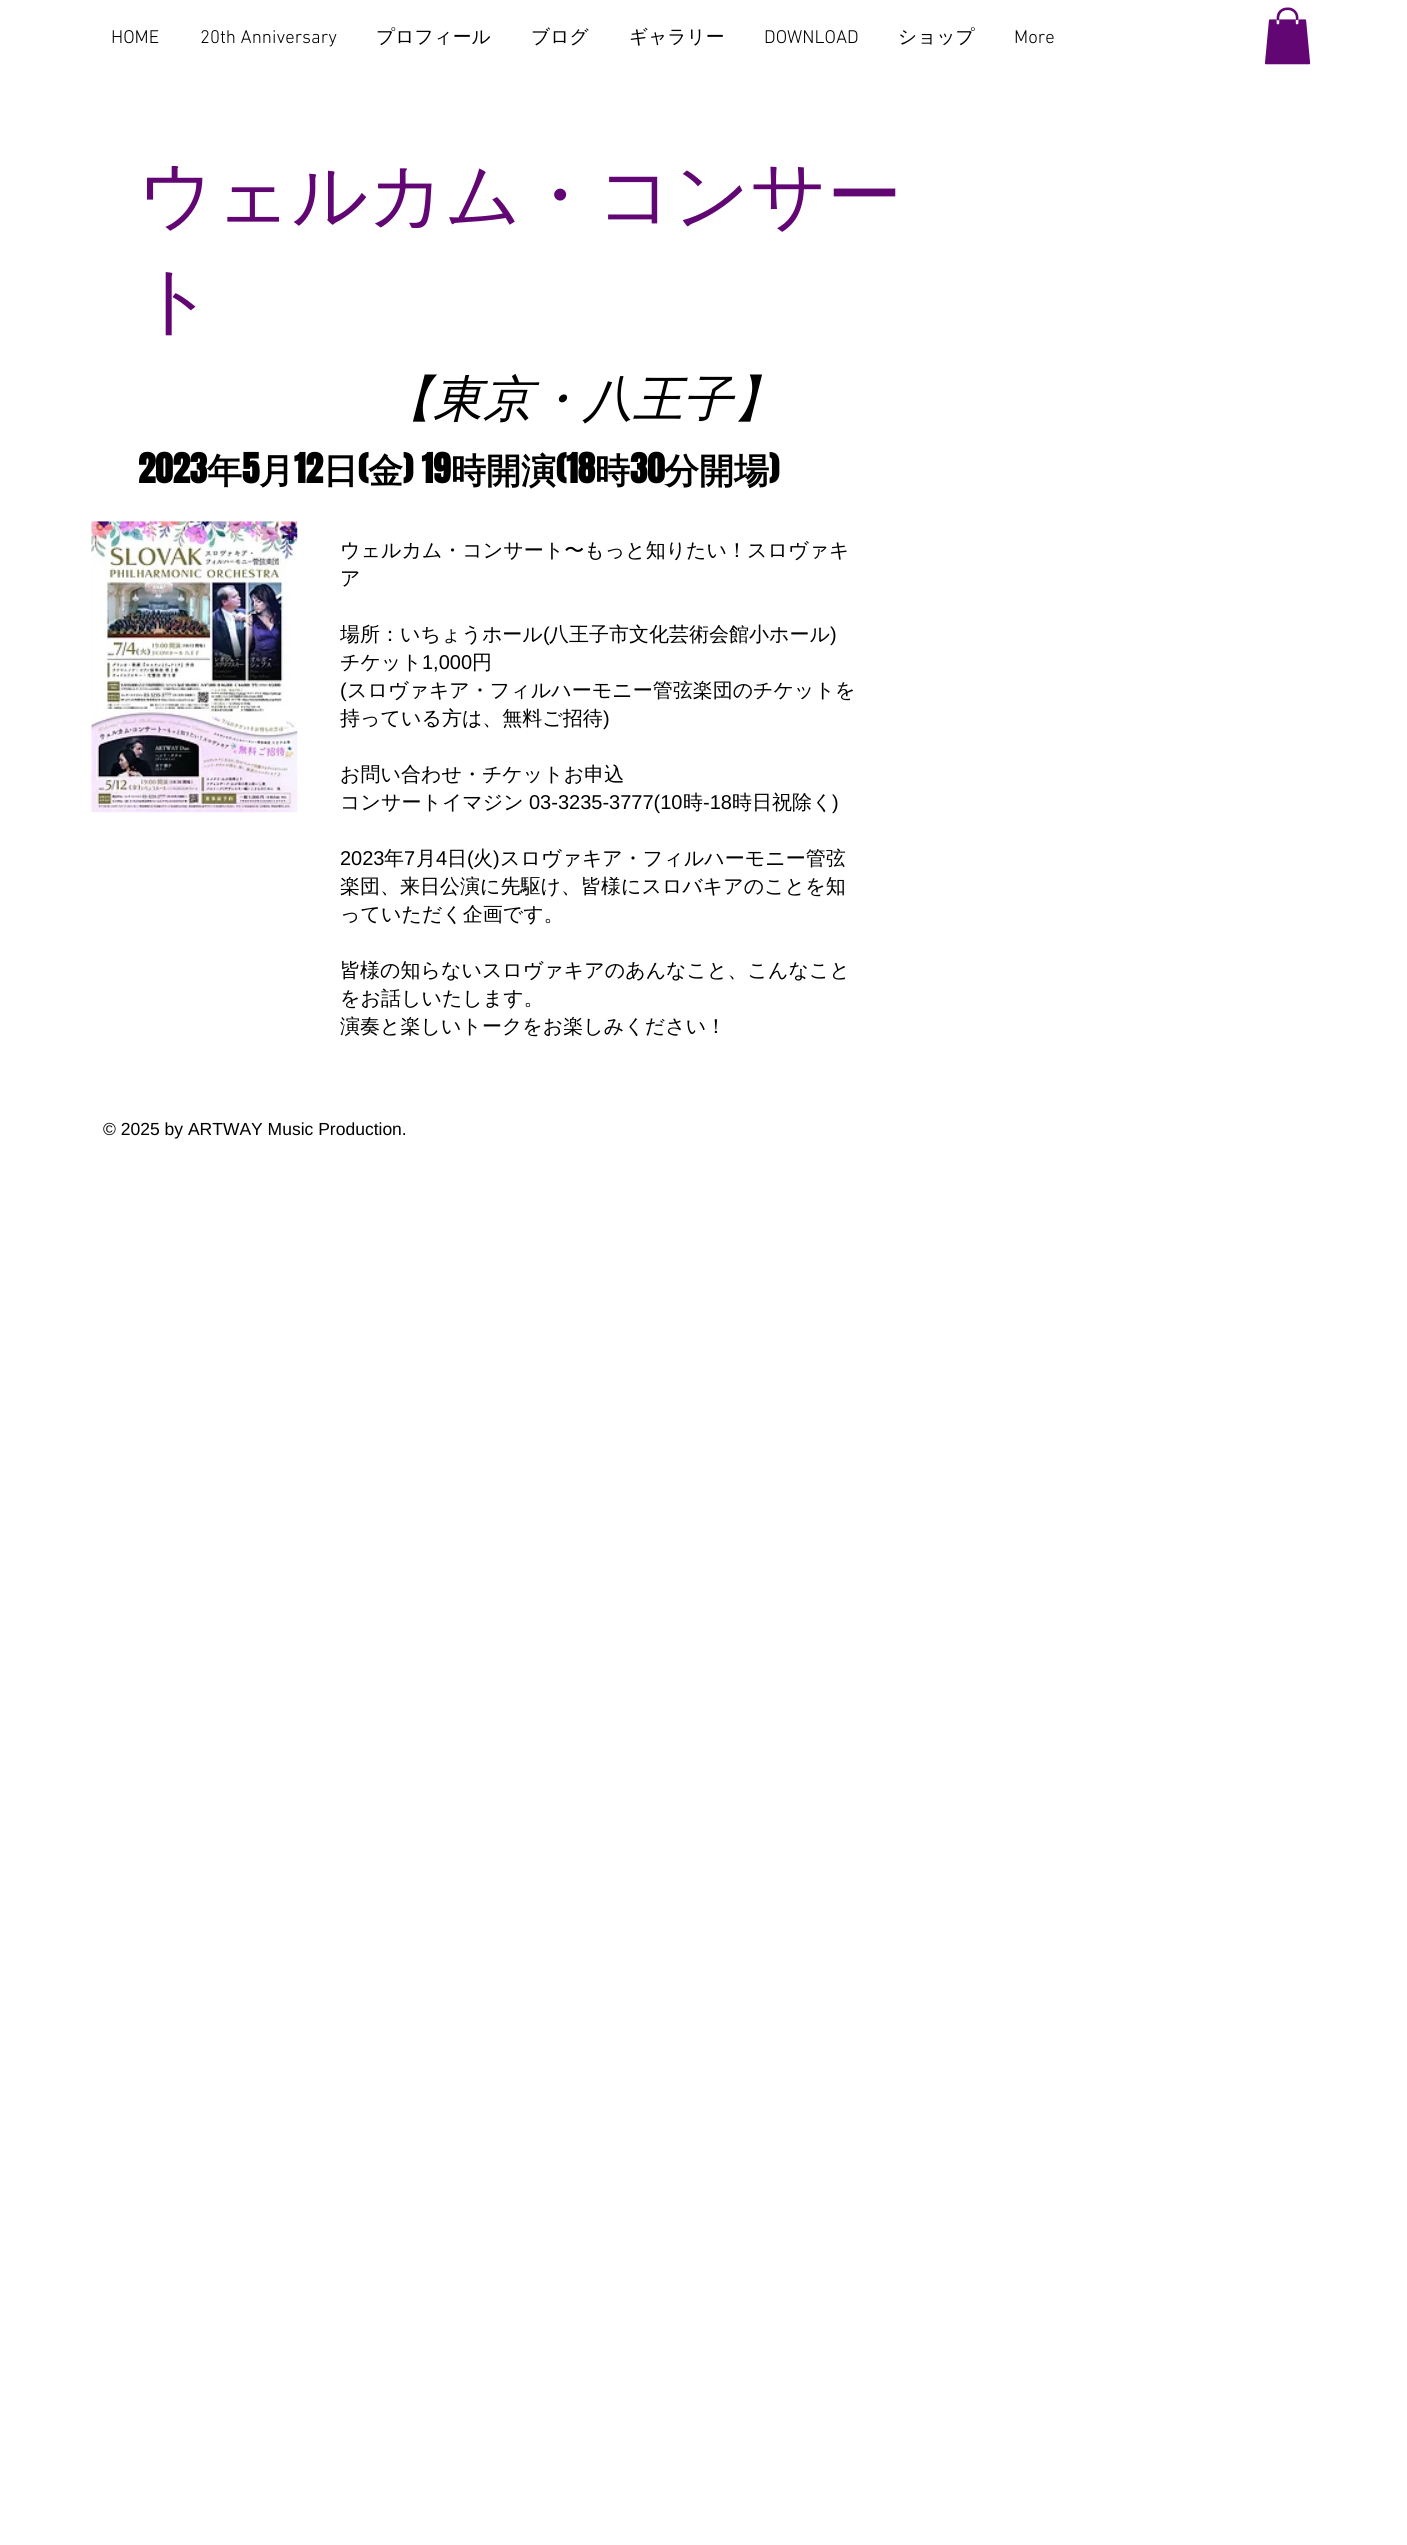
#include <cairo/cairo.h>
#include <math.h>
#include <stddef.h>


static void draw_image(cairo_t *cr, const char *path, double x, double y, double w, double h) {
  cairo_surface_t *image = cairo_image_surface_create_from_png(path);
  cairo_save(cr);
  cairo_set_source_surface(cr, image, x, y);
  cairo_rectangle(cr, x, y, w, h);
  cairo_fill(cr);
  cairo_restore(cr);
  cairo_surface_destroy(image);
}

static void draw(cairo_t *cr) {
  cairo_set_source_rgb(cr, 1, 1, 1);
  cairo_paint(cr);
  draw_image(cr, "images/1.png", 1264, 7, 47, 58);
  draw_image(cr, "images/2.png", 91, 521, 207, 292);
  cairo_select_font_face(cr, "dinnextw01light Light", CAIRO_FONT_SLANT_NORMAL, CAIRO_FONT_WEIGHT_NORMAL);
  cairo_set_font_size(cr, 18.75);
  cairo_set_source_rgb(cr, 0, 0, 0);
  cairo_move_to(cr, 111, 43);
  cairo_show_text(cr, "HOME");
  cairo_move_to(cr, 200, 43);
  cairo_show_text(cr, "20th Anniversary");
  cairo_select_font_face(cr, "WenQuanYi Zen Hei Medium", CAIRO_FONT_SLANT_NORMAL, CAIRO_FONT_WEIGHT_NORMAL);
  cairo_move_to(cr, 376, 43);
  cairo_show_text(cr, "プロフィール");
  cairo_move_to(cr, 531, 43);
  cairo_show_text(cr, "ブログ");
  cairo_move_to(cr, 629, 43);
  cairo_show_text(cr, "ギャラリー");
  cairo_select_font_face(cr, "dinnextw01light Light", CAIRO_FONT_SLANT_NORMAL, CAIRO_FONT_WEIGHT_NORMAL);
  cairo_move_to(cr, 764, 43);
  cairo_show_text(cr, "DOWNLOAD");
  cairo_select_font_face(cr, "WenQuanYi Zen Hei Medium", CAIRO_FONT_SLANT_NORMAL, CAIRO_FONT_WEIGHT_NORMAL);
  cairo_move_to(cr, 898, 43);
  cairo_show_text(cr, "ショップ");
  cairo_select_font_face(cr, "dinnextw01light Light", CAIRO_FONT_SLANT_NORMAL, CAIRO_FONT_WEIGHT_NORMAL);
  cairo_move_to(cr, 1014, 43);
  cairo_show_text(cr, "More");
  cairo_select_font_face(cr, "WenQuanYi Zen Hei Medium", CAIRO_FONT_SLANT_NORMAL, CAIRO_FONT_WEIGHT_NORMAL);
  cairo_set_font_size(cr, 75);
  cairo_set_source_rgb(cr, 98 / 255.0, 6 / 255.0, 116 / 255.0);
  cairo_move_to(cr, 138, 221);
  cairo_show_text(cr, "ウェルカム・コンサー");
  cairo_move_to(cr, 138, 326);
  cairo_show_text(cr, "ト");
  cairo_select_font_face(cr, "WenQuanYi Zen Hei Medium", CAIRO_FONT_SLANT_ITALIC, CAIRO_FONT_WEIGHT_NORMAL);
  cairo_set_font_size(cr, 50);
  cairo_set_source_rgb(cr, 0, 0, 0);
  cairo_move_to(cr, 383, 416);
  cairo_show_text(cr, "【東京・八王子】");
  cairo_select_font_face(cr, "Anton", CAIRO_FONT_SLANT_NORMAL, CAIRO_FONT_WEIGHT_BOLD);
  cairo_set_font_size(cr, 35);
  cairo_move_to(cr, 138, 483);
  cairo_show_text(cr, "2023");
  cairo_select_font_face(cr, "WenQuanYi Zen Hei", CAIRO_FONT_SLANT_NORMAL, CAIRO_FONT_WEIGHT_BOLD);
  cairo_move_to(cr, 207, 483);
  cairo_show_text(cr, "年");
  cairo_select_font_face(cr, "Anton", CAIRO_FONT_SLANT_NORMAL, CAIRO_FONT_WEIGHT_BOLD);
  cairo_move_to(cr, 242, 483);
  cairo_show_text(cr, "5");
  cairo_select_font_face(cr, "WenQuanYi Zen Hei", CAIRO_FONT_SLANT_NORMAL, CAIRO_FONT_WEIGHT_BOLD);
  cairo_move_to(cr, 259, 483);
  cairo_show_text(cr, "月");
  cairo_select_font_face(cr, "Anton", CAIRO_FONT_SLANT_NORMAL, CAIRO_FONT_WEIGHT_BOLD);
  cairo_move_to(cr, 294, 483);
  cairo_show_text(cr, "12");
  cairo_select_font_face(cr, "WenQuanYi Zen Hei", CAIRO_FONT_SLANT_NORMAL, CAIRO_FONT_WEIGHT_BOLD);
  cairo_move_to(cr, 323, 483);
  cairo_show_text(cr, "日");
  cairo_select_font_face(cr, "Anton", CAIRO_FONT_SLANT_NORMAL, CAIRO_FONT_WEIGHT_BOLD);
  cairo_move_to(cr, 358, 483);
  cairo_show_text(cr, "(");
  cairo_select_font_face(cr, "WenQuanYi Zen Hei", CAIRO_FONT_SLANT_NORMAL, CAIRO_FONT_WEIGHT_BOLD);
  cairo_move_to(cr, 368, 483);
  cairo_show_text(cr, "金");
  cairo_select_font_face(cr, "Anton", CAIRO_FONT_SLANT_NORMAL, CAIRO_FONT_WEIGHT_BOLD);
  cairo_move_to(cr, 403, 483);
  cairo_show_text(cr, ") 19");
  cairo_select_font_face(cr, "WenQuanYi Zen Hei", CAIRO_FONT_SLANT_NORMAL, CAIRO_FONT_WEIGHT_BOLD);
  cairo_move_to(cr, 451, 483);
  cairo_show_text(cr, "時開演");
  cairo_select_font_face(cr, "Anton", CAIRO_FONT_SLANT_NORMAL, CAIRO_FONT_WEIGHT_BOLD);
  cairo_move_to(cr, 556, 483);
  cairo_show_text(cr, "(18");
  cairo_select_font_face(cr, "WenQuanYi Zen Hei", CAIRO_FONT_SLANT_NORMAL, CAIRO_FONT_WEIGHT_BOLD);
  cairo_move_to(cr, 595, 483);
  cairo_show_text(cr, "時");
  cairo_select_font_face(cr, "Anton", CAIRO_FONT_SLANT_NORMAL, CAIRO_FONT_WEIGHT_BOLD);
  cairo_move_to(cr, 630, 483);
  cairo_show_text(cr, "30");
  cairo_select_font_face(cr, "WenQuanYi Zen Hei", CAIRO_FONT_SLANT_NORMAL, CAIRO_FONT_WEIGHT_BOLD);
  cairo_move_to(cr, 664, 483);
  cairo_show_text(cr, "分開場");
  cairo_select_font_face(cr, "Anton", CAIRO_FONT_SLANT_NORMAL, CAIRO_FONT_WEIGHT_BOLD);
  cairo_move_to(cr, 769, 483);
  cairo_show_text(cr, ")");
  cairo_select_font_face(cr, "WenQuanYi Zen Hei Medium", CAIRO_FONT_SLANT_NORMAL, CAIRO_FONT_WEIGHT_NORMAL);
  cairo_set_font_size(cr, 20);
  cairo_move_to(cr, 340, 557);
  cairo_show_text(cr, "ウェルカム・コンサート〜もっと知りたい！スロヴァキ");
  cairo_move_to(cr, 340, 585);
  cairo_show_text(cr, "ア");
  cairo_move_to(cr, 340, 641);
  cairo_show_text(cr, "場所：いちょうホール");
  cairo_select_font_face(cr, "Liberation Sans", CAIRO_FONT_SLANT_NORMAL, CAIRO_FONT_WEIGHT_NORMAL);
  cairo_move_to(cr, 543, 641);
  cairo_show_text(cr, "(");
  cairo_select_font_face(cr, "WenQuanYi Zen Hei Medium", CAIRO_FONT_SLANT_NORMAL, CAIRO_FONT_WEIGHT_NORMAL);
  cairo_move_to(cr, 549, 641);
  cairo_show_text(cr, "八王子市文化芸術会館小ホール");
  cairo_select_font_face(cr, "Liberation Sans", CAIRO_FONT_SLANT_NORMAL, CAIRO_FONT_WEIGHT_NORMAL);
  cairo_move_to(cr, 830, 641);
  cairo_show_text(cr, ")");
  cairo_select_font_face(cr, "WenQuanYi Zen Hei Medium", CAIRO_FONT_SLANT_NORMAL, CAIRO_FONT_WEIGHT_NORMAL);
  cairo_move_to(cr, 340, 669);
  cairo_show_text(cr, "チケット");
  cairo_select_font_face(cr, "Liberation Sans", CAIRO_FONT_SLANT_NORMAL, CAIRO_FONT_WEIGHT_NORMAL);
  cairo_move_to(cr, 422, 669);
  cairo_show_text(cr, "1,000");
  cairo_select_font_face(cr, "WenQuanYi Zen Hei Medium", CAIRO_FONT_SLANT_NORMAL, CAIRO_FONT_WEIGHT_NORMAL);
  cairo_move_to(cr, 472, 669);
  cairo_show_text(cr, "円");
  cairo_select_font_face(cr, "Liberation Sans", CAIRO_FONT_SLANT_NORMAL, CAIRO_FONT_WEIGHT_NORMAL);
  cairo_move_to(cr, 340, 697);
  cairo_show_text(cr, "(");
  cairo_select_font_face(cr, "WenQuanYi Zen Hei Medium", CAIRO_FONT_SLANT_NORMAL, CAIRO_FONT_WEIGHT_NORMAL);
  cairo_move_to(cr, 347, 697);
  cairo_show_text(cr, "スロヴァキア・フィルハーモニー管弦楽団のチケットを");
  cairo_move_to(cr, 340, 725);
  cairo_show_text(cr, "持っている方は、無料ご招待");
  cairo_select_font_face(cr, "Liberation Sans", CAIRO_FONT_SLANT_NORMAL, CAIRO_FONT_WEIGHT_NORMAL);
  cairo_move_to(cr, 603, 725);
  cairo_show_text(cr, ")");
  cairo_select_font_face(cr, "WenQuanYi Zen Hei Medium", CAIRO_FONT_SLANT_NORMAL, CAIRO_FONT_WEIGHT_NORMAL);
  cairo_move_to(cr, 340, 781);
  cairo_show_text(cr, "お問い合わせ・チケットお申込");
  cairo_move_to(cr, 340, 809);
  cairo_show_text(cr, "コンサートイマジン");
  cairo_select_font_face(cr, "Liberation Sans", CAIRO_FONT_SLANT_NORMAL, CAIRO_FONT_WEIGHT_NORMAL);
  cairo_move_to(cr, 529, 809);
  cairo_show_text(cr, "03-3235-3777(10");
  cairo_select_font_face(cr, "WenQuanYi Zen Hei Medium", CAIRO_FONT_SLANT_NORMAL, CAIRO_FONT_WEIGHT_NORMAL);
  cairo_move_to(cr, 683, 809);
  cairo_show_text(cr, "時");
  cairo_select_font_face(cr, "Liberation Sans", CAIRO_FONT_SLANT_NORMAL, CAIRO_FONT_WEIGHT_NORMAL);
  cairo_move_to(cr, 703, 809);
  cairo_show_text(cr, "-18");
  cairo_select_font_face(cr, "WenQuanYi Zen Hei Medium", CAIRO_FONT_SLANT_NORMAL, CAIRO_FONT_WEIGHT_NORMAL);
  cairo_move_to(cr, 732, 809);
  cairo_show_text(cr, "時日祝除く");
  cairo_select_font_face(cr, "Liberation Sans", CAIRO_FONT_SLANT_NORMAL, CAIRO_FONT_WEIGHT_NORMAL);
  cairo_move_to(cr, 832, 809);
  cairo_show_text(cr, ")");
  cairo_move_to(cr, 340, 865);
  cairo_show_text(cr, "2023");
  cairo_select_font_face(cr, "WenQuanYi Zen Hei Medium", CAIRO_FONT_SLANT_NORMAL, CAIRO_FONT_WEIGHT_NORMAL);
  cairo_move_to(cr, 384, 865);
  cairo_show_text(cr, "年");
  cairo_select_font_face(cr, "Liberation Sans", CAIRO_FONT_SLANT_NORMAL, CAIRO_FONT_WEIGHT_NORMAL);
  cairo_move_to(cr, 404, 865);
  cairo_show_text(cr, "7");
  cairo_select_font_face(cr, "WenQuanYi Zen Hei Medium", CAIRO_FONT_SLANT_NORMAL, CAIRO_FONT_WEIGHT_NORMAL);
  cairo_move_to(cr, 416, 865);
  cairo_show_text(cr, "月");
  cairo_select_font_face(cr, "Liberation Sans", CAIRO_FONT_SLANT_NORMAL, CAIRO_FONT_WEIGHT_NORMAL);
  cairo_move_to(cr, 436, 865);
  cairo_show_text(cr, "4");
  cairo_select_font_face(cr, "WenQuanYi Zen Hei Medium", CAIRO_FONT_SLANT_NORMAL, CAIRO_FONT_WEIGHT_NORMAL);
  cairo_move_to(cr, 447, 865);
  cairo_show_text(cr, "日");
  cairo_select_font_face(cr, "Liberation Sans", CAIRO_FONT_SLANT_NORMAL, CAIRO_FONT_WEIGHT_NORMAL);
  cairo_move_to(cr, 467, 865);
  cairo_show_text(cr, "(");
  cairo_select_font_face(cr, "WenQuanYi Zen Hei Medium", CAIRO_FONT_SLANT_NORMAL, CAIRO_FONT_WEIGHT_NORMAL);
  cairo_move_to(cr, 473, 865);
  cairo_show_text(cr, "火");
  cairo_select_font_face(cr, "Liberation Sans", CAIRO_FONT_SLANT_NORMAL, CAIRO_FONT_WEIGHT_NORMAL);
  cairo_move_to(cr, 493, 865);
  cairo_show_text(cr, ")");
  cairo_select_font_face(cr, "WenQuanYi Zen Hei Medium", CAIRO_FONT_SLANT_NORMAL, CAIRO_FONT_WEIGHT_NORMAL);
  cairo_move_to(cr, 500, 865);
  cairo_show_text(cr, "スロヴァキア・フィルハーモニー管弦");
  cairo_move_to(cr, 340, 893);
  cairo_show_text(cr, "楽団、来日公演に先駆け、皆様にスロバキアのことを知");
  cairo_move_to(cr, 340, 921);
  cairo_show_text(cr, "っていただく企画です。");
  cairo_move_to(cr, 340, 977);
  cairo_show_text(cr, "皆様の知らないスロヴァキアのあんなこと、こんなこと");
  cairo_move_to(cr, 340, 1005);
  cairo_show_text(cr, "をお話しいたします。");
  cairo_move_to(cr, 340, 1033);
  cairo_show_text(cr, "演奏と楽しいトークをお楽しみください！");
  cairo_select_font_face(cr, "Liberation Sans", CAIRO_FONT_SLANT_NORMAL, CAIRO_FONT_WEIGHT_NORMAL);
  cairo_set_font_size(cr, 17.5);
  cairo_move_to(cr, 103, 1135);
  cairo_show_text(cr, "© 2025 by ARTWAY Music Production.");
}

int main(void) {
  cairo_surface_t *surface = cairo_image_surface_create(CAIRO_FORMAT_RGB24, 1407, 2545);
  cairo_t *cr = cairo_create(surface);
  cairo_font_options_t *options = cairo_font_options_create();
  cairo_font_options_set_hint_metrics(options, CAIRO_HINT_METRICS_OFF);
  cairo_font_options_set_hint_style(options, CAIRO_HINT_STYLE_NONE);
  cairo_set_font_options(cr, options);
  cairo_set_miter_limit(cr, 4);
  draw(cr);
  cairo_surface_write_to_png(surface, "out.png");
  cairo_font_options_destroy(options);
  cairo_destroy(cr);
  cairo_surface_destroy(surface);
  return 0;
}
